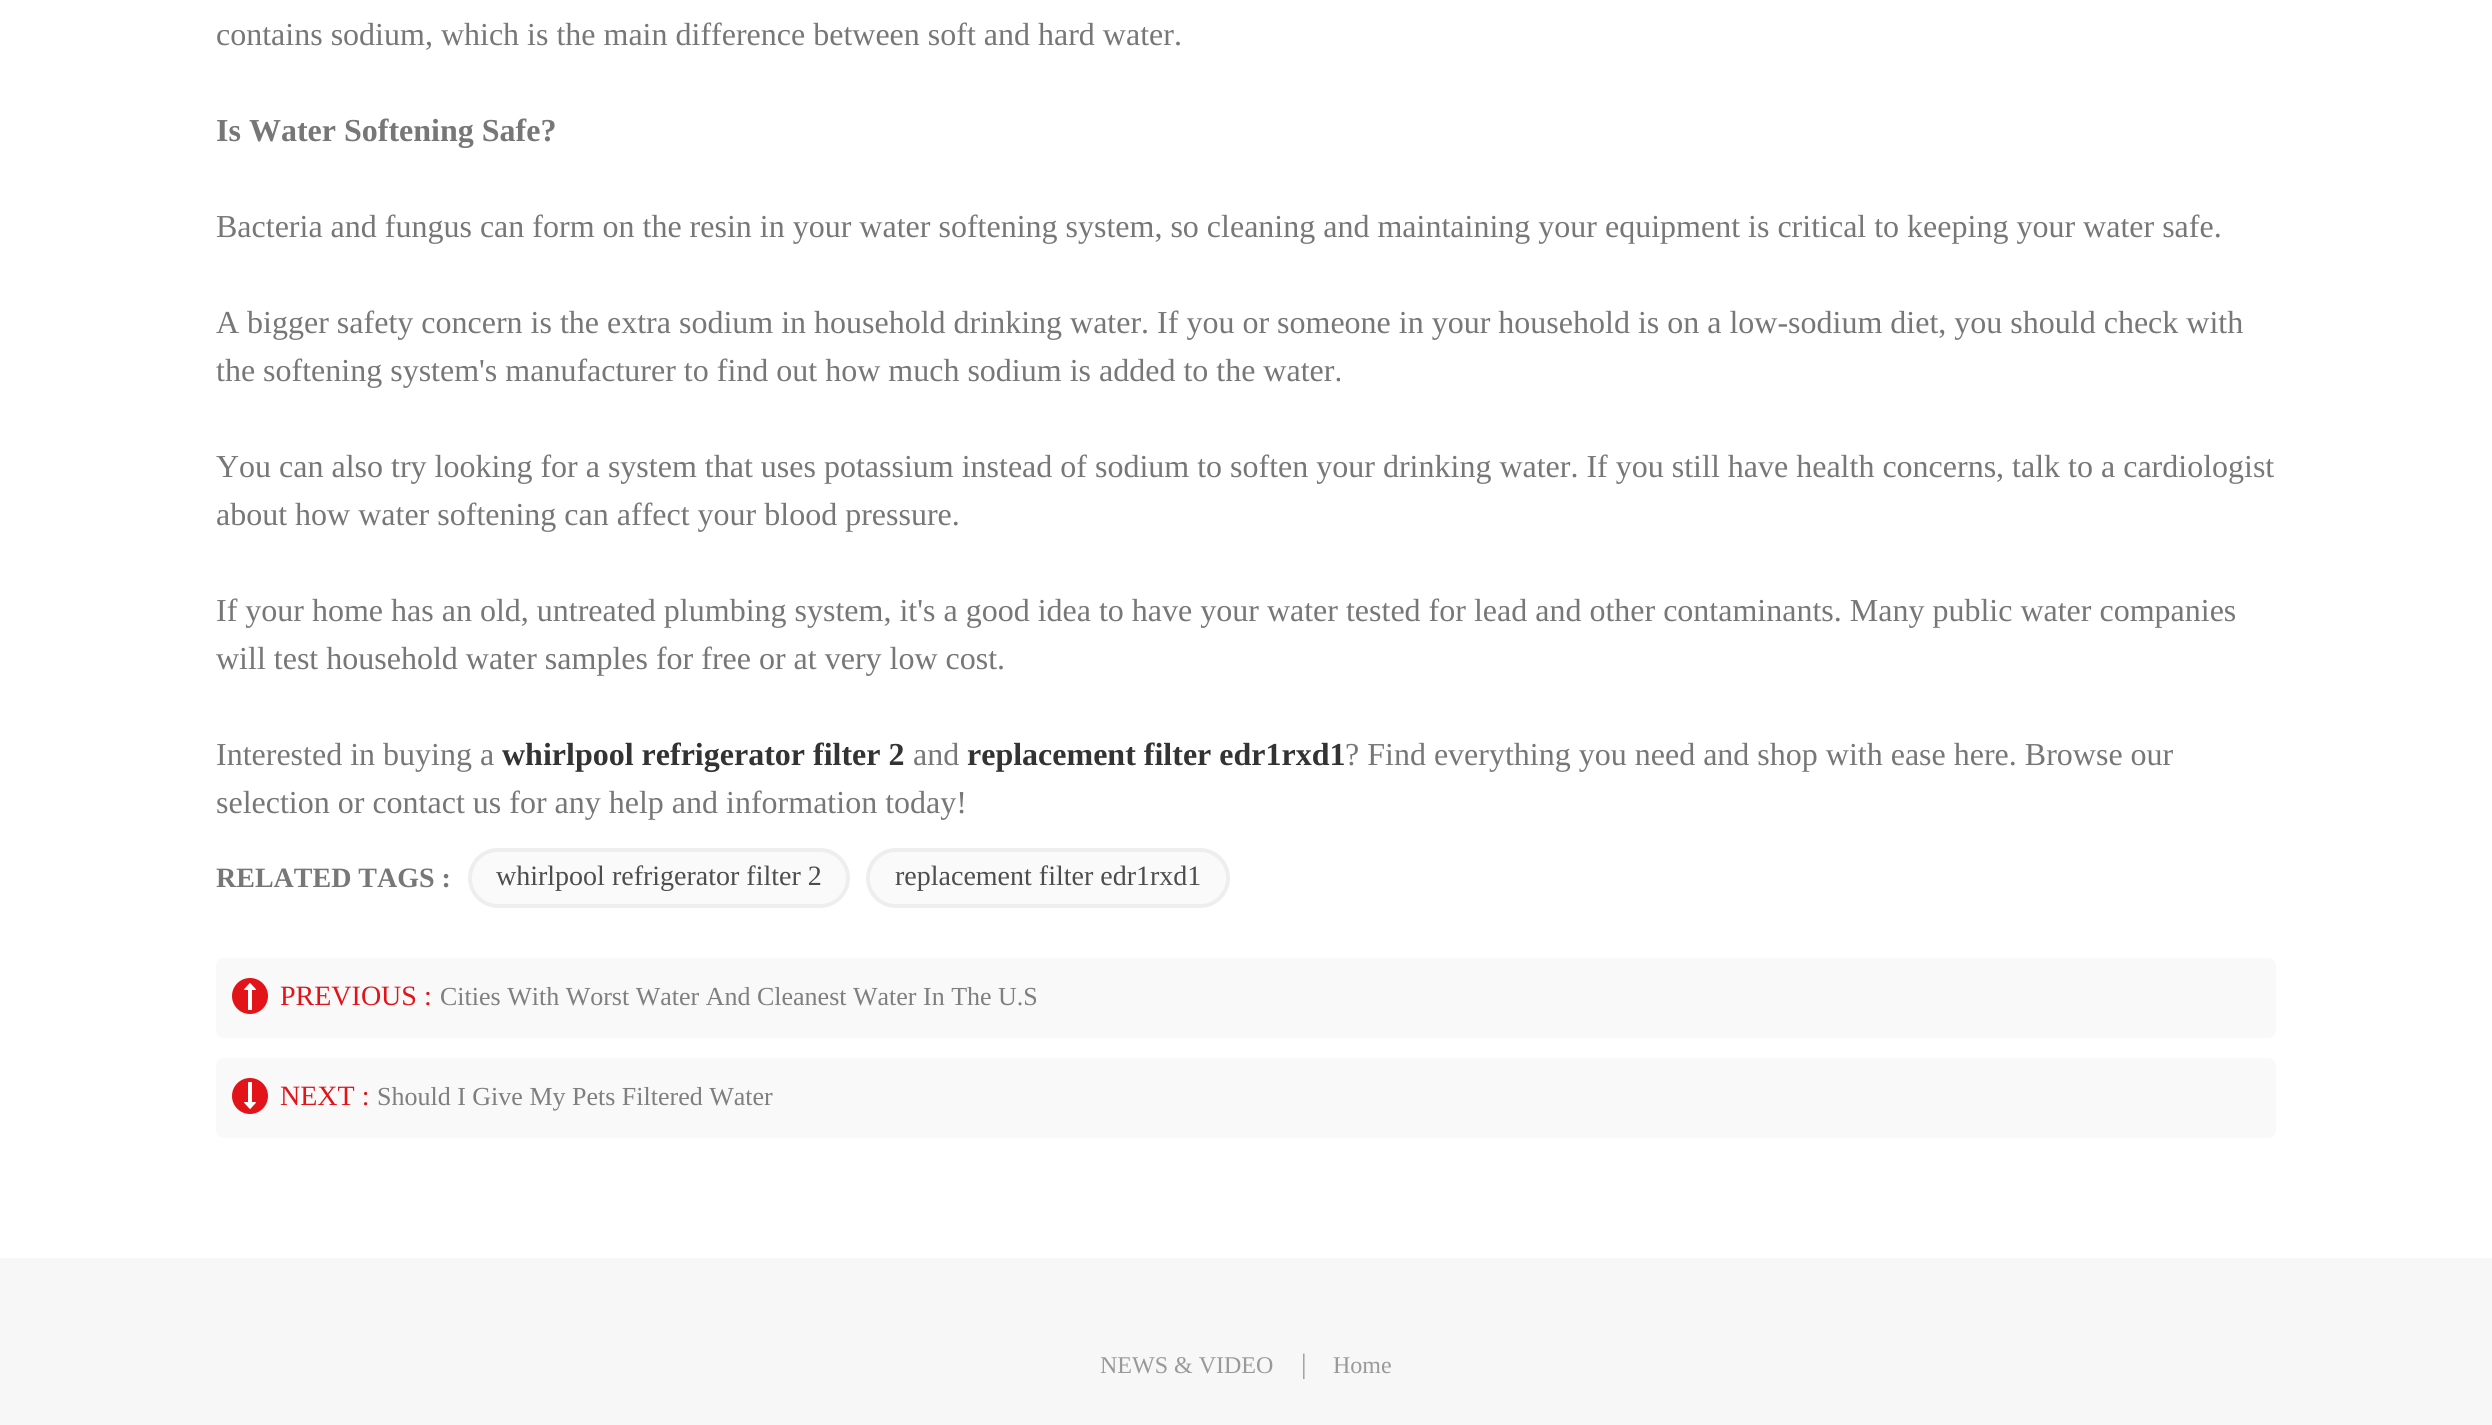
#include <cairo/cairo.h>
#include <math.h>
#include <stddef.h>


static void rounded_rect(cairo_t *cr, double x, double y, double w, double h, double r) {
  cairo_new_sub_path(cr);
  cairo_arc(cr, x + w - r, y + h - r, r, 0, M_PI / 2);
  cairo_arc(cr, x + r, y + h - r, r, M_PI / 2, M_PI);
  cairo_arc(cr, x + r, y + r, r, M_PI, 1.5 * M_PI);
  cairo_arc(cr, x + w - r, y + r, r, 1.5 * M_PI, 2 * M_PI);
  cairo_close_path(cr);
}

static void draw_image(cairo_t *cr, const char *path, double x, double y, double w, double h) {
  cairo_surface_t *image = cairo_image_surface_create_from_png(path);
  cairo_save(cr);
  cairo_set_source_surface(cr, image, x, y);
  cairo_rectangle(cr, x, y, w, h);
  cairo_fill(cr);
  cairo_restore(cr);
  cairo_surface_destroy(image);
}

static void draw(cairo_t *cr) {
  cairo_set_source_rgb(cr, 1, 1, 1);
  cairo_paint(cr);
  cairo_set_source_rgb(cr, 250 / 255.0, 250 / 255.0, 250 / 255.0);
  rounded_rect(cr, 470, 850, 378, 56, 28);
  cairo_fill_preserve(cr);
  cairo_set_source_rgb(cr, 238 / 255.0, 238 / 255.0, 238 / 255.0);
  cairo_set_line_width(cr, 4);
  cairo_stroke(cr);
  cairo_set_source_rgb(cr, 250 / 255.0, 250 / 255.0, 250 / 255.0);
  rounded_rect(cr, 868, 850, 360, 56, 28);
  cairo_fill_preserve(cr);
  cairo_set_source_rgb(cr, 238 / 255.0, 238 / 255.0, 238 / 255.0);
  cairo_stroke(cr);
  cairo_set_source_rgb(cr, 249 / 255.0, 249 / 255.0, 249 / 255.0);
  rounded_rect(cr, 216, 958, 2060, 80, 8);
  cairo_fill(cr);
  cairo_set_source_rgb(cr, 226 / 255.0, 20 / 255.0, 26 / 255.0);
  cairo_arc(cr, 250, 996, 18, 0, 2 * M_PI);
  cairo_fill(cr);
  draw_image(cr, "images/1.png", 244, 983, 12, 27);
  cairo_set_source_rgb(cr, 249 / 255.0, 249 / 255.0, 249 / 255.0);
  rounded_rect(cr, 216, 1058, 2060, 80, 8);
  cairo_fill(cr);
  cairo_set_source_rgb(cr, 226 / 255.0, 20 / 255.0, 26 / 255.0);
  cairo_arc(cr, 250, 1096, 18, 0, 2 * M_PI);
  cairo_fill(cr);
  draw_image(cr, "images/2.png", 244, 1082, 12, 27);
  cairo_set_source_rgb(cr, 247 / 255.0, 247 / 255.0, 247 / 255.0);
  cairo_rectangle(cr, 0, 1258, 2492, 167);
  cairo_fill(cr);
  cairo_select_font_face(cr, "Liberation Serif", CAIRO_FONT_SLANT_NORMAL, CAIRO_FONT_WEIGHT_NORMAL);
  cairo_set_font_size(cr, 32);
  cairo_set_source_rgb(cr, 119 / 255.0, 119 / 255.0, 119 / 255.0);
  cairo_move_to(cr, 216, 45);
  cairo_show_text(cr, "contains sodium, which is the main difference between soft and hard water.");
  cairo_select_font_face(cr, "Liberation Serif", CAIRO_FONT_SLANT_NORMAL, CAIRO_FONT_WEIGHT_BOLD);
  cairo_move_to(cr, 216, 141);
  cairo_show_text(cr, "Is Water Softening Safe?");
  cairo_select_font_face(cr, "Liberation Serif", CAIRO_FONT_SLANT_NORMAL, CAIRO_FONT_WEIGHT_NORMAL);
  cairo_move_to(cr, 216, 237);
  cairo_show_text(cr, "Bacteria and fungus can form on the resin in your water softening system, so cleaning and maintaining your equipment is critical to keeping your water safe.");
  cairo_move_to(cr, 216, 333);
  cairo_show_text(cr, "A bigger safety concern is the extra sodium in household drinking water. If you or someone in your household is on a low-sodium diet, you should check with");
  cairo_move_to(cr, 216, 381);
  cairo_show_text(cr, "the softening system's manufacturer to find out how much sodium is added to the water.");
  cairo_move_to(cr, 216, 477);
  cairo_show_text(cr, "You can also try looking for a system that uses potassium instead of sodium to soften your drinking water. If you still have health concerns, talk to a cardiologist");
  cairo_move_to(cr, 216, 525);
  cairo_show_text(cr, "about how water softening can affect your blood pressure.");
  cairo_move_to(cr, 216, 621);
  cairo_show_text(cr, "If your home has an old, untreated plumbing system, it's a good idea to have your water tested for lead and other contaminants. Many public water companies");
  cairo_move_to(cr, 216, 669);
  cairo_show_text(cr, "will test household water samples for free or at very low cost.");
  cairo_move_to(cr, 216, 765);
  cairo_show_text(cr, "Interested in buying a");
  cairo_select_font_face(cr, "Liberation Serif", CAIRO_FONT_SLANT_NORMAL, CAIRO_FONT_WEIGHT_BOLD);
  cairo_set_source_rgb(cr, 51 / 255.0, 51 / 255.0, 51 / 255.0);
  cairo_move_to(cr, 502, 765);
  cairo_show_text(cr, "whirlpool refrigerator filter 2");
  cairo_select_font_face(cr, "Liberation Serif", CAIRO_FONT_SLANT_NORMAL, CAIRO_FONT_WEIGHT_NORMAL);
  cairo_set_source_rgb(cr, 119 / 255.0, 119 / 255.0, 119 / 255.0);
  cairo_move_to(cr, 913, 765);
  cairo_show_text(cr, "and");
  cairo_select_font_face(cr, "Liberation Serif", CAIRO_FONT_SLANT_NORMAL, CAIRO_FONT_WEIGHT_BOLD);
  cairo_set_source_rgb(cr, 51 / 255.0, 51 / 255.0, 51 / 255.0);
  cairo_move_to(cr, 967, 765);
  cairo_show_text(cr, "replacement filter edr1rxd1");
  cairo_select_font_face(cr, "Liberation Serif", CAIRO_FONT_SLANT_NORMAL, CAIRO_FONT_WEIGHT_NORMAL);
  cairo_set_source_rgb(cr, 119 / 255.0, 119 / 255.0, 119 / 255.0);
  cairo_move_to(cr, 1345, 765);
  cairo_show_text(cr, "? Find everything you need and shop with ease here. Browse our");
  cairo_move_to(cr, 216, 813);
  cairo_show_text(cr, "selection or contact us for any help and information today!");
  cairo_select_font_face(cr, "Liberation Serif", CAIRO_FONT_SLANT_NORMAL, CAIRO_FONT_WEIGHT_BOLD);
  cairo_set_font_size(cr, 28);
  cairo_move_to(cr, 216, 887);
  cairo_show_text(cr, "RELATED TAGS :");
  cairo_select_font_face(cr, "Liberation Serif", CAIRO_FONT_SLANT_NORMAL, CAIRO_FONT_WEIGHT_NORMAL);
  cairo_set_source_rgb(cr, 77 / 255.0, 77 / 255.0, 77 / 255.0);
  cairo_move_to(cr, 496, 885);
  cairo_show_text(cr, "whirlpool refrigerator filter 2");
  cairo_move_to(cr, 895, 885);
  cairo_show_text(cr, "replacement filter edr1rxd1");
  cairo_set_source_rgb(cr, 226 / 255.0, 20 / 255.0, 26 / 255.0);
  cairo_move_to(cr, 280, 1005);
  cairo_show_text(cr, "PREVIOUS :");
  cairo_set_font_size(cr, 26);
  cairo_set_source_rgb(cr, 127 / 255.0, 127 / 255.0, 127 / 255.0);
  cairo_move_to(cr, 440, 1005);
  cairo_show_text(cr, "Cities With Worst Water And Cleanest Water In The U.S");
  cairo_set_font_size(cr, 28);
  cairo_set_source_rgb(cr, 226 / 255.0, 20 / 255.0, 26 / 255.0);
  cairo_move_to(cr, 280, 1105);
  cairo_show_text(cr, "NEXT :");
  cairo_set_font_size(cr, 26);
  cairo_set_source_rgb(cr, 127 / 255.0, 127 / 255.0, 127 / 255.0);
  cairo_move_to(cr, 377, 1105);
  cairo_show_text(cr, "Should I Give My Pets Filtered Water");
  cairo_set_font_size(cr, 24);
  cairo_set_source_rgb(cr, 153 / 255.0, 153 / 255.0, 153 / 255.0);
  cairo_move_to(cr, 1100, 1373);
  cairo_show_text(cr, "NEWS & VIDEO");
  cairo_set_font_size(cr, 28);
  cairo_move_to(cr, 1301, 1373);
  cairo_show_text(cr, "|");
  cairo_set_font_size(cr, 24);
  cairo_move_to(cr, 1333, 1373);
  cairo_show_text(cr, "Home");
}

int main(void) {
  cairo_surface_t *surface = cairo_image_surface_create(CAIRO_FORMAT_RGB24, 2492, 1425);
  cairo_t *cr = cairo_create(surface);
  cairo_font_options_t *options = cairo_font_options_create();
  cairo_font_options_set_hint_metrics(options, CAIRO_HINT_METRICS_OFF);
  cairo_font_options_set_hint_style(options, CAIRO_HINT_STYLE_NONE);
  cairo_set_font_options(cr, options);
  cairo_set_miter_limit(cr, 4);
  draw(cr);
  cairo_surface_write_to_png(surface, "out.png");
  cairo_font_options_destroy(options);
  cairo_destroy(cr);
  cairo_surface_destroy(surface);
  return 0;
}
